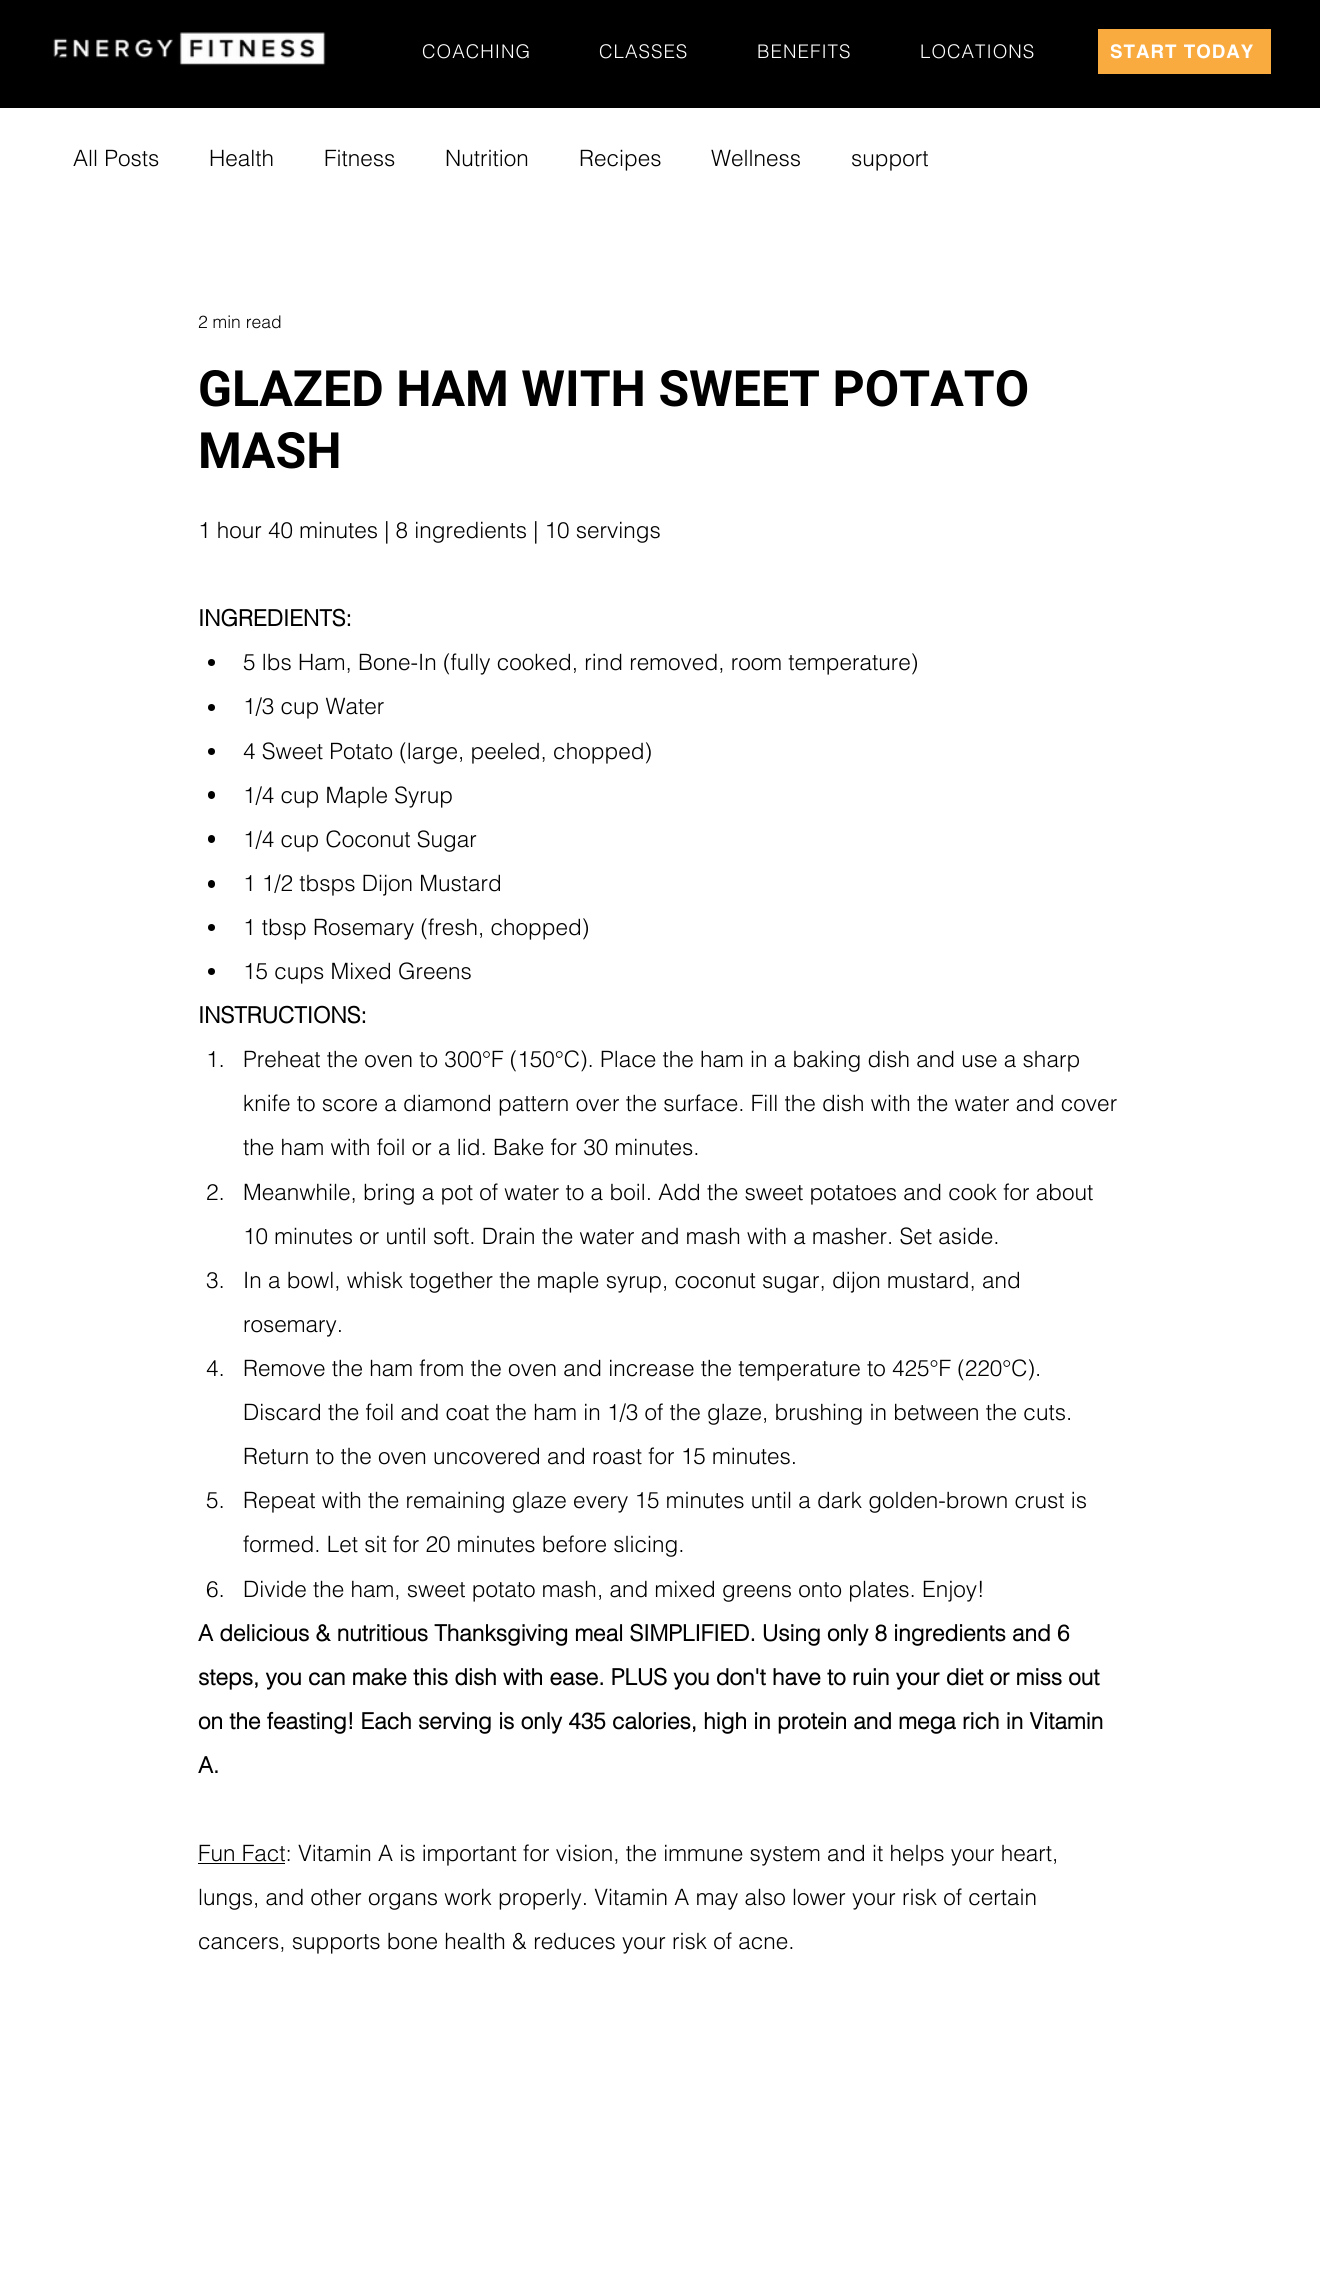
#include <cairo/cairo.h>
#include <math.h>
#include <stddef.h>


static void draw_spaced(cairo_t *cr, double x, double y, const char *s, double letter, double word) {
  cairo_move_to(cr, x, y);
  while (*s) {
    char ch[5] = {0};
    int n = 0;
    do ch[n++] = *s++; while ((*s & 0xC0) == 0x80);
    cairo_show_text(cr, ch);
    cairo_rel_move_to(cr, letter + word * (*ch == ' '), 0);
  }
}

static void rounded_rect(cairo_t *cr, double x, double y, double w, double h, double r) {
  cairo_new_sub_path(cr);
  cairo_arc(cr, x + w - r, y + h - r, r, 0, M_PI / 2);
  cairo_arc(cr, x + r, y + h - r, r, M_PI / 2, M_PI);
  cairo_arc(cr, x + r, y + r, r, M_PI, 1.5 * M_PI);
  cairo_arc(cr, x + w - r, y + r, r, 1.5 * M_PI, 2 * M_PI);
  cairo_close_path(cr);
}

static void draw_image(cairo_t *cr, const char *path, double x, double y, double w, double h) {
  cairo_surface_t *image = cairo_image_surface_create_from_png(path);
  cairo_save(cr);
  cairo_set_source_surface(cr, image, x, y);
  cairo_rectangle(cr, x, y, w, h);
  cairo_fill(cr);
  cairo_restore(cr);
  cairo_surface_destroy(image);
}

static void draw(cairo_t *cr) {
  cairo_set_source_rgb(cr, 1, 1, 1);
  cairo_paint(cr);
  cairo_set_source_rgb(cr, 0, 0, 0);
  cairo_rectangle(cr, 0, 0, 1320, 108);
  cairo_fill(cr);
  draw_image(cr, "images/1.png", 53, 32, 273, 34);
  cairo_set_source_rgb(cr, 250 / 255.0, 171 / 255.0, 64 / 255.0);
  cairo_rectangle(cr, 1098, 29, 173, 45);
  cairo_fill(cr);
  cairo_set_source_rgb(cr, 0, 0, 0);
  cairo_arc(cr, 211.5, 662.5, 3.5, 0, 2 * M_PI);
  cairo_fill(cr);
  cairo_arc(cr, 211.5, 707.5, 3.5, 0, 2 * M_PI);
  cairo_fill(cr);
  cairo_arc(cr, 211.5, 751.5, 3.5, 0, 2 * M_PI);
  cairo_fill(cr);
  rounded_rect(cr, 208, 791, 7, 8, 3.5);
  cairo_fill(cr);
  rounded_rect(cr, 208, 835, 7, 8, 3.5);
  cairo_fill(cr);
  rounded_rect(cr, 208, 880, 7, 8, 3.5);
  cairo_fill(cr);
  cairo_arc(cr, 211.5, 927.5, 3.5, 0, 2 * M_PI);
  cairo_fill(cr);
  cairo_arc(cr, 211.5, 971.5, 3.5, 0, 2 * M_PI);
  cairo_fill(cr);
  cairo_rectangle(cr, 198, 1863, 87, 1);
  cairo_fill(cr);
  cairo_select_font_face(cr, "helvetica Light", CAIRO_FONT_SLANT_NORMAL, CAIRO_FONT_WEIGHT_NORMAL);
  cairo_set_font_size(cr, 18.75);
  cairo_set_source_rgb(cr, 1, 1, 1);
  draw_spaced(cr, 422, 58, "COACHING", 1, 0);
  draw_spaced(cr, 599, 58, "CLASSES", 1, 0);
  draw_spaced(cr, 757, 58, "BENEFITS", 1, 0);
  draw_spaced(cr, 920, 58, "LOCATIONS", 1, 0);
  cairo_select_font_face(cr, "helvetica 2", CAIRO_FONT_SLANT_NORMAL, CAIRO_FONT_WEIGHT_BOLD);
  draw_spaced(cr, 1110, 58, "START TODAY", 1, 0);
  cairo_select_font_face(cr, "helvetica Light", CAIRO_FONT_SLANT_NORMAL, CAIRO_FONT_WEIGHT_NORMAL);
  cairo_set_font_size(cr, 22.5);
  cairo_set_source_rgb(cr, 0, 0, 0);
  cairo_move_to(cr, 73, 166);
  cairo_show_text(cr, "All Posts");
  cairo_move_to(cr, 209, 166);
  cairo_show_text(cr, "Health");
  cairo_move_to(cr, 324, 166);
  cairo_show_text(cr, "Fitness");
  cairo_move_to(cr, 445, 166);
  cairo_show_text(cr, "Nutrition");
  cairo_move_to(cr, 579, 166);
  cairo_show_text(cr, "Recipes");
  cairo_move_to(cr, 711, 166);
  cairo_show_text(cr, "Wellness");
  cairo_move_to(cr, 851, 166);
  cairo_show_text(cr, "support");
  cairo_set_font_size(cr, 17.5);
  cairo_move_to(cr, 198, 328);
  cairo_show_text(cr, "2 min read");
  cairo_select_font_face(cr, "Roboto", CAIRO_FONT_SLANT_NORMAL, CAIRO_FONT_WEIGHT_BOLD);
  cairo_set_font_size(cr, 50);
  cairo_move_to(cr, 198, 406);
  cairo_show_text(cr, "GLAZED HAM WITH SWEET POTATO");
  cairo_move_to(cr, 198, 468);
  cairo_show_text(cr, "MASH");
  cairo_select_font_face(cr, "helvetica Light", CAIRO_FONT_SLANT_NORMAL, CAIRO_FONT_WEIGHT_NORMAL);
  cairo_set_font_size(cr, 22.5);
  cairo_move_to(cr, 198, 538);
  cairo_show_text(cr, "1 hour 40 minutes | 8 ingredients | 10 servings");
  cairo_select_font_face(cr, "helvetica", CAIRO_FONT_SLANT_NORMAL, CAIRO_FONT_WEIGHT_BOLD);
  cairo_move_to(cr, 198, 626);
  cairo_show_text(cr, "INGREDIENTS:");
  cairo_select_font_face(cr, "helvetica Light", CAIRO_FONT_SLANT_NORMAL, CAIRO_FONT_WEIGHT_NORMAL);
  cairo_move_to(cr, 243, 670);
  cairo_show_text(cr, "5 lbs Ham, Bone-In (fully cooked, rind removed, room temperature)");
  cairo_move_to(cr, 243, 714);
  cairo_show_text(cr, "1/3 cup Water");
  cairo_move_to(cr, 243, 759);
  cairo_show_text(cr, "4 Sweet Potato (large, peeled, chopped)");
  cairo_move_to(cr, 243, 803);
  cairo_show_text(cr, "1/4 cup Maple Syrup");
  cairo_move_to(cr, 243, 847);
  cairo_show_text(cr, "1/4 cup Coconut Sugar");
  cairo_move_to(cr, 243, 891);
  cairo_show_text(cr, "1 1/2 tbsps Dijon Mustard");
  cairo_move_to(cr, 243, 935);
  cairo_show_text(cr, "1 tbsp Rosemary (fresh, chopped)");
  cairo_move_to(cr, 243, 979);
  cairo_show_text(cr, "15 cups Mixed Greens");
  cairo_select_font_face(cr, "helvetica", CAIRO_FONT_SLANT_NORMAL, CAIRO_FONT_WEIGHT_BOLD);
  cairo_move_to(cr, 198, 1023);
  cairo_show_text(cr, "INSTRUCTIONS:");
  cairo_select_font_face(cr, "helvetica Light", CAIRO_FONT_SLANT_NORMAL, CAIRO_FONT_WEIGHT_NORMAL);
  cairo_move_to(cr, 206, 1067);
  cairo_show_text(cr, "1.");
  cairo_move_to(cr, 243, 1067);
  cairo_show_text(cr, "Preheat the oven to 300°F (150°C). Place the ham in a baking dish and use a sharp");
  cairo_move_to(cr, 243, 1111);
  cairo_show_text(cr, "knife to score a diamond pattern over the surface. Fill the dish with the water and cover");
  cairo_move_to(cr, 243, 1155);
  cairo_show_text(cr, "the ham with foil or a lid. Bake for 30 minutes.");
  cairo_move_to(cr, 206, 1200);
  cairo_show_text(cr, "2.");
  cairo_move_to(cr, 243, 1200);
  cairo_show_text(cr, "Meanwhile, bring a pot of water to a boil. Add the sweet potatoes and cook for about");
  cairo_move_to(cr, 243, 1244);
  cairo_show_text(cr, "10 minutes or until soft. Drain the water and mash with a masher. Set aside.");
  cairo_move_to(cr, 206, 1288);
  cairo_show_text(cr, "3.");
  cairo_move_to(cr, 243, 1288);
  cairo_show_text(cr, "In a bowl, whisk together the maple syrup, coconut sugar, dijon mustard, and");
  cairo_move_to(cr, 243, 1332);
  cairo_show_text(cr, "rosemary.");
  cairo_move_to(cr, 206, 1376);
  cairo_show_text(cr, "4.");
  cairo_move_to(cr, 243, 1376);
  cairo_show_text(cr, "Remove the ham from the oven and increase the temperature to 425°F (220°C).");
  cairo_move_to(cr, 243, 1420);
  cairo_show_text(cr, "Discard the foil and coat the ham in 1/3 of the glaze, brushing in between the cuts.");
  cairo_move_to(cr, 243, 1464);
  cairo_show_text(cr, "Return to the oven uncovered and roast for 15 minutes.");
  cairo_move_to(cr, 206, 1508);
  cairo_show_text(cr, "5.");
  cairo_move_to(cr, 243, 1508);
  cairo_show_text(cr, "Repeat with the remaining glaze every 15 minutes until a dark golden-brown crust is");
  cairo_move_to(cr, 243, 1552);
  cairo_show_text(cr, "formed. Let sit for 20 minutes before slicing.");
  cairo_move_to(cr, 206, 1597);
  cairo_show_text(cr, "6.");
  cairo_move_to(cr, 243, 1597);
  cairo_show_text(cr, "Divide the ham, sweet potato mash, and mixed greens onto plates. Enjoy!");
  cairo_select_font_face(cr, "helvetica", CAIRO_FONT_SLANT_NORMAL, CAIRO_FONT_WEIGHT_BOLD);
  cairo_move_to(cr, 198, 1641);
  cairo_show_text(cr, "A delicious & nutritious Thanksgiving meal SIMPLIFIED. Using only 8 ingredients and 6");
  cairo_move_to(cr, 198, 1685);
  cairo_show_text(cr, "steps, you can make this dish with ease. PLUS you don't have to ruin your diet or miss out");
  cairo_move_to(cr, 198, 1729);
  cairo_show_text(cr, "on the feasting! Each serving is only 435 calories, high in protein and mega rich in Vitamin");
  cairo_move_to(cr, 198, 1773);
  cairo_show_text(cr, "A.");
  cairo_select_font_face(cr, "helvetica Light", CAIRO_FONT_SLANT_NORMAL, CAIRO_FONT_WEIGHT_NORMAL);
  cairo_move_to(cr, 198, 1861);
  cairo_show_text(cr, "Fun Fact: Vitamin A is important for vision, the immune system and it helps your heart,");
  cairo_move_to(cr, 198, 1905);
  cairo_show_text(cr, "lungs, and other organs work properly. Vitamin A may also lower your risk of certain");
  cairo_move_to(cr, 198, 1949);
  cairo_show_text(cr, "cancers, supports bone health & reduces your risk of acne.");
}

int main(void) {
  cairo_surface_t *surface = cairo_image_surface_create(CAIRO_FORMAT_RGB24, 1320, 2288);
  cairo_t *cr = cairo_create(surface);
  cairo_font_options_t *options = cairo_font_options_create();
  cairo_font_options_set_hint_metrics(options, CAIRO_HINT_METRICS_OFF);
  cairo_font_options_set_hint_style(options, CAIRO_HINT_STYLE_NONE);
  cairo_set_font_options(cr, options);
  cairo_set_miter_limit(cr, 4);
  draw(cr);
  cairo_surface_write_to_png(surface, "out.png");
  cairo_font_options_destroy(options);
  cairo_destroy(cr);
  cairo_surface_destroy(surface);
  return 0;
}
